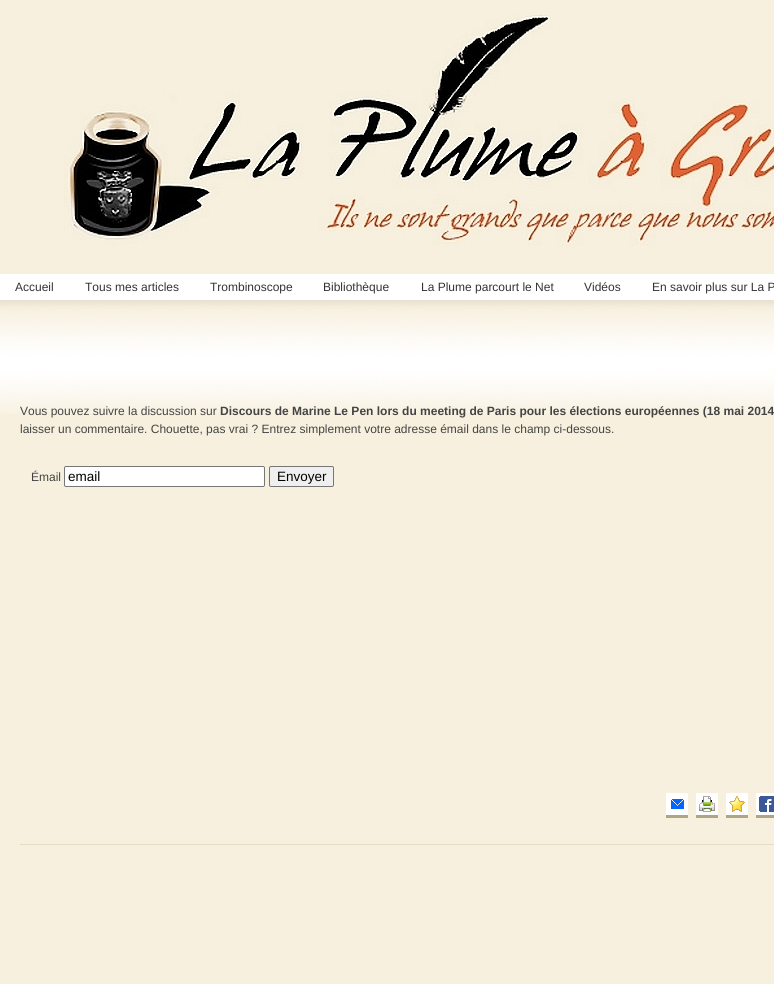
#include <cairo/cairo.h>
#include <math.h>
#include <stddef.h>


static void rounded_rect(cairo_t *cr, double x, double y, double w, double h, double r) {
  cairo_new_sub_path(cr);
  cairo_arc(cr, x + w - r, y + h - r, r, 0, M_PI / 2);
  cairo_arc(cr, x + r, y + h - r, r, M_PI / 2, M_PI);
  cairo_arc(cr, x + r, y + r, r, M_PI, 1.5 * M_PI);
  cairo_arc(cr, x + w - r, y + r, r, 1.5 * M_PI, 2 * M_PI);
  cairo_close_path(cr);
}

static void draw_image(cairo_t *cr, const char *path, double x, double y, double w, double h) {
  cairo_surface_t *image = cairo_image_surface_create_from_png(path);
  cairo_save(cr);
  cairo_set_source_surface(cr, image, x, y);
  cairo_rectangle(cr, x, y, w, h);
  cairo_fill(cr);
  cairo_restore(cr);
  cairo_surface_destroy(image);
}

static void draw(cairo_t *cr) {
  cairo_set_source_rgb(cr, 247 / 255.0, 240 / 255.0, 222 / 255.0);
  cairo_paint(cr);
  draw_image(cr, "images/1.png", 64, 14, 710, 232);
  cairo_set_source_rgb(cr, 1, 1, 1);
  cairo_rectangle(cr, 0, 274, 774, 26);
  cairo_fill(cr);
  draw_image(cr, "images/2.png", 0, 300, 774, 114);
  cairo_set_source_rgb(cr, 230 / 255.0, 220 / 255.0, 193 / 255.0);
  cairo_rectangle(cr, 20, 844, 754, 1);
  cairo_fill(cr);
  cairo_set_source_rgb(cr, 1, 1, 1);
  rounded_rect(cr, 64.5, 466.5, 200, 20, 1.5);
  cairo_fill_preserve(cr);
  cairo_set_source_rgb(cr, 118 / 255.0, 118 / 255.0, 118 / 255.0);
  cairo_set_line_width(cr, 1);
  cairo_stroke(cr);
  cairo_set_source_rgb(cr, 239 / 255.0, 239 / 255.0, 239 / 255.0);
  rounded_rect(cr, 269.5, 466.5, 64, 20, 1.5);
  cairo_fill_preserve(cr);
  cairo_set_source_rgb(cr, 118 / 255.0, 118 / 255.0, 118 / 255.0);
  cairo_stroke(cr);
  cairo_set_source_rgb(cr, 1, 1, 1);
  cairo_rectangle(cr, 666, 793, 22, 22);
  cairo_fill(cr);
  draw_image(cr, "images/3.png", 671, 799, 13, 10);
  cairo_set_source_rgb(cr, 175 / 255.0, 164 / 255.0, 134 / 255.0);
  cairo_rectangle(cr, 666, 815, 22, 3);
  cairo_fill(cr);
  cairo_set_source_rgb(cr, 1, 1, 1);
  cairo_rectangle(cr, 696, 793, 22, 22);
  cairo_fill(cr);
  draw_image(cr, "images/4.png", 699, 796, 16, 16);
  cairo_set_source_rgb(cr, 175 / 255.0, 164 / 255.0, 134 / 255.0);
  cairo_rectangle(cr, 696, 815, 22, 3);
  cairo_fill(cr);
  cairo_set_source_rgb(cr, 1, 1, 1);
  cairo_rectangle(cr, 726, 793, 22, 22);
  cairo_fill(cr);
  draw_image(cr, "images/5.png", 729, 796, 16, 16);
  cairo_set_source_rgb(cr, 175 / 255.0, 164 / 255.0, 134 / 255.0);
  cairo_rectangle(cr, 726, 815, 22, 3);
  cairo_fill(cr);
  cairo_set_source_rgb(cr, 1, 1, 1);
  cairo_rectangle(cr, 756, 793, 18, 22);
  cairo_fill(cr);
  draw_image(cr, "images/6.png", 759, 796, 15, 16);
  cairo_set_source_rgb(cr, 175 / 255.0, 164 / 255.0, 134 / 255.0);
  cairo_rectangle(cr, 756, 815, 18, 3);
  cairo_fill(cr);
  cairo_select_font_face(cr, "Liberation Sans", CAIRO_FONT_SLANT_NORMAL, CAIRO_FONT_WEIGHT_NORMAL);
  cairo_set_font_size(cr, 12);
  cairo_set_source_rgb(cr, 51 / 255.0, 51 / 255.0, 51 / 255.0);
  cairo_move_to(cr, 15, 291);
  cairo_show_text(cr, "Accueil");
  cairo_move_to(cr, 85, 291);
  cairo_show_text(cr, "Tous mes articles");
  cairo_move_to(cr, 210, 291);
  cairo_show_text(cr, "Trombinoscope");
  cairo_move_to(cr, 323, 291);
  cairo_show_text(cr, "Bibliothèque");
  cairo_move_to(cr, 421, 291);
  cairo_show_text(cr, "La Plume parcourt le Net");
  cairo_move_to(cr, 584, 291);
  cairo_show_text(cr, "Vidéos");
  cairo_move_to(cr, 652, 291);
  cairo_show_text(cr, "En savoir plus sur La P");
  cairo_set_source_rgb(cr, 68 / 255.0, 68 / 255.0, 68 / 255.0);
  cairo_move_to(cr, 20, 415);
  cairo_show_text(cr, "Vous pouvez suivre la discussion sur");
  cairo_select_font_face(cr, "Liberation Sans", CAIRO_FONT_SLANT_NORMAL, CAIRO_FONT_WEIGHT_BOLD);
  cairo_move_to(cr, 220, 415);
  cairo_show_text(cr, "Discours de Marine Le Pen lors du meeting de Paris pour les élections européennes (18 mai 2014");
  cairo_select_font_face(cr, "Liberation Sans", CAIRO_FONT_SLANT_NORMAL, CAIRO_FONT_WEIGHT_NORMAL);
  cairo_move_to(cr, 20, 433);
  cairo_show_text(cr, "laisser un commentaire. Chouette, pas vrai ? Entrez simplement votre adresse émail dans le champ ci-dessous.");
  cairo_move_to(cr, 31, 481);
  cairo_show_text(cr, "Émail");
  cairo_set_font_size(cr, 13.5);
  cairo_set_source_rgb(cr, 0, 0, 0);
  cairo_move_to(cr, 68, 481);
  cairo_show_text(cr, "email");
  cairo_move_to(cr, 277, 481);
  cairo_show_text(cr, "Envoyer");
}

int main(void) {
  cairo_surface_t *surface = cairo_image_surface_create(CAIRO_FORMAT_RGB24, 774, 984);
  cairo_t *cr = cairo_create(surface);
  cairo_font_options_t *options = cairo_font_options_create();
  cairo_font_options_set_hint_metrics(options, CAIRO_HINT_METRICS_OFF);
  cairo_font_options_set_hint_style(options, CAIRO_HINT_STYLE_NONE);
  cairo_set_font_options(cr, options);
  cairo_set_miter_limit(cr, 4);
  draw(cr);
  cairo_surface_write_to_png(surface, "out.png");
  cairo_font_options_destroy(options);
  cairo_destroy(cr);
  cairo_surface_destroy(surface);
  return 0;
}
